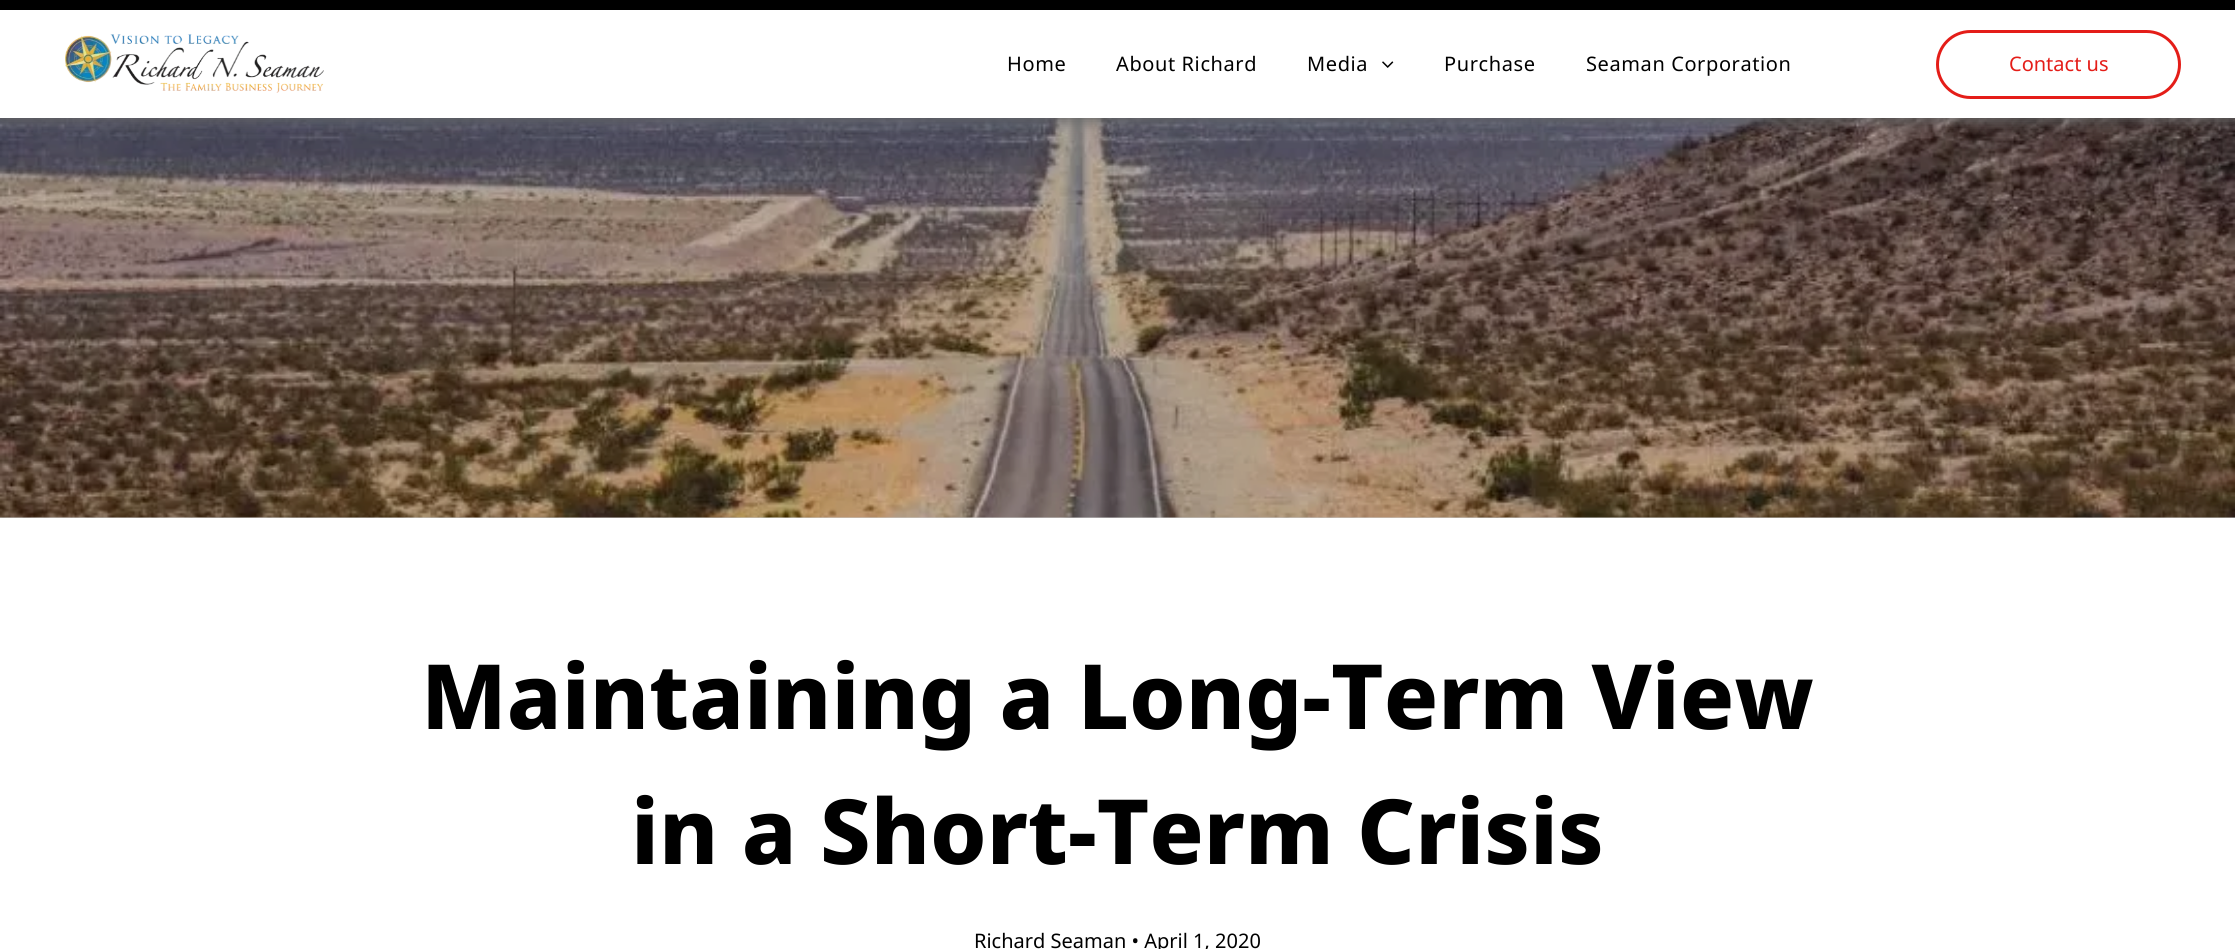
#include <cairo/cairo.h>
#include <math.h>
#include <stddef.h>


static void draw_spaced(cairo_t *cr, double x, double y, const char *s, double letter, double word) {
  cairo_move_to(cr, x, y);
  while (*s) {
    char ch[5] = {0};
    int n = 0;
    do ch[n++] = *s++; while ((*s & 0xC0) == 0x80);
    cairo_show_text(cr, ch);
    cairo_rel_move_to(cr, letter + word * (*ch == ' '), 0);
  }
}

static void rounded_rect(cairo_t *cr, double x, double y, double w, double h, double r) {
  cairo_new_sub_path(cr);
  cairo_arc(cr, x + w - r, y + h - r, r, 0, M_PI / 2);
  cairo_arc(cr, x + r, y + h - r, r, M_PI / 2, M_PI);
  cairo_arc(cr, x + r, y + r, r, M_PI, 1.5 * M_PI);
  cairo_arc(cr, x + w - r, y + r, r, 1.5 * M_PI, 2 * M_PI);
  cairo_close_path(cr);
}

static void draw_shadow(cairo_t *cr, double x, double y, double w, double h, double r, double blur, double alpha) {
  cairo_push_group_with_content(cr, CAIRO_CONTENT_ALPHA);
  cairo_set_operator(cr, CAIRO_OPERATOR_SOURCE);
  for (int i = 15; i >= -15 && fmin(w, h) + blur * i / 3 > 0; i -= 2) {
    double e = blur * i / 6;
    cairo_set_source_rgba(cr, 0, 0, 0, alpha * erfc((i - 1) / 8.5) / 2);
    rounded_rect(cr, x - e, y - e, w + 2 * e, h + 2 * e, fmax(0, fmin(r + e + blur * .6, fmin(w, h) / 2 + e)));
    cairo_fill(cr);
  }
  cairo_pattern_t *soft = cairo_pop_group(cr);
  cairo_mask(cr, soft);
  cairo_pattern_destroy(soft);
}

static void draw_image(cairo_t *cr, const char *path, double x, double y, double w, double h) {
  cairo_surface_t *image = cairo_image_surface_create_from_png(path);
  cairo_save(cr);
  cairo_set_source_surface(cr, image, x, y);
  cairo_rectangle(cr, x, y, w, h);
  cairo_fill(cr);
  cairo_restore(cr);
  cairo_surface_destroy(image);
}

static void draw(cairo_t *cr) {
  cairo_set_source_rgb(cr, 1, 1, 1);
  cairo_paint(cr);
  cairo_set_source_rgb(cr, 204 / 255.0, 204 / 255.0, 204 / 255.0);
  cairo_rectangle(cr, 0, 517, 2235, 1);
  cairo_fill(cr);
  draw_image(cr, "images/3.png", 0, 118, 2235, 400);
  cairo_set_source_rgb(cr, 102 / 255.0, 102 / 255.0, 102 / 255.0);
  draw_shadow(cr, 0, 4, 2235, 117, 0, 7, 1);
  cairo_set_source_rgb(cr, 1, 1, 1);
  cairo_rectangle(cr, 0, 10, 2235, 108);
  cairo_fill(cr);
  cairo_set_source_rgb(cr, 0, 0, 0);
  cairo_rectangle(cr, 0, 0, 2235, 10);
  cairo_fill(cr);
  draw_image(cr, "images/1.png", 65, 34, 259, 59);
  draw_image(cr, "images/2.png", 1382, 61, 12, 7);
  rounded_rect(cr, 1937.5, 31.5, 242, 66, 33);
  cairo_set_source_rgb(cr, 228 / 255.0, 29 / 255.0, 24 / 255.0);
  cairo_set_line_width(cr, 3);
  cairo_stroke(cr);
  cairo_select_font_face(cr, "Noto Sans", CAIRO_FONT_SLANT_NORMAL, CAIRO_FONT_WEIGHT_NORMAL);
  cairo_set_font_size(cr, 20);
  cairo_set_source_rgb(cr, 0, 0, 0);
  draw_spaced(cr, 1007, 71, "Home", 0.6, 0);
  draw_spaced(cr, 1116, 71, "About Richard", 0.6, 0);
  draw_spaced(cr, 1307, 71, "Media", 0.6, 0);
  draw_spaced(cr, 1444, 71, "Purchase", 0.6, 0);
  draw_spaced(cr, 1586, 71, "Seaman Corporation", 0.6, 0);
  cairo_set_source_rgb(cr, 228 / 255.0, 29 / 255.0, 24 / 255.0);
  cairo_move_to(cr, 2009, 71);
  cairo_show_text(cr, "Contact us");
  cairo_select_font_face(cr, "Noto Sans ExtraBold", CAIRO_FONT_SLANT_NORMAL, CAIRO_FONT_WEIGHT_NORMAL);
  cairo_set_font_size(cr, 90);
  cairo_set_source_rgb(cr, 0, 0, 0);
  cairo_move_to(cr, 421, 729);
  cairo_show_text(cr, "Maintaining a Long-Term View");
  cairo_move_to(cr, 631, 864);
  cairo_show_text(cr, "in a Short-Term Crisis");
  cairo_select_font_face(cr, "Noto Sans", CAIRO_FONT_SLANT_NORMAL, CAIRO_FONT_WEIGHT_NORMAL);
  cairo_set_font_size(cr, 20);
  cairo_move_to(cr, 974, 948);
  cairo_show_text(cr, "Richard Seaman • April 1, 2020");
}

int main(void) {
  cairo_surface_t *surface = cairo_image_surface_create(CAIRO_FORMAT_RGB24, 2235, 949);
  cairo_t *cr = cairo_create(surface);
  cairo_font_options_t *options = cairo_font_options_create();
  cairo_font_options_set_hint_metrics(options, CAIRO_HINT_METRICS_OFF);
  cairo_font_options_set_hint_style(options, CAIRO_HINT_STYLE_NONE);
  cairo_set_font_options(cr, options);
  cairo_set_miter_limit(cr, 4);
  draw(cr);
  cairo_surface_write_to_png(surface, "out.png");
  cairo_font_options_destroy(options);
  cairo_destroy(cr);
  cairo_surface_destroy(surface);
  return 0;
}
